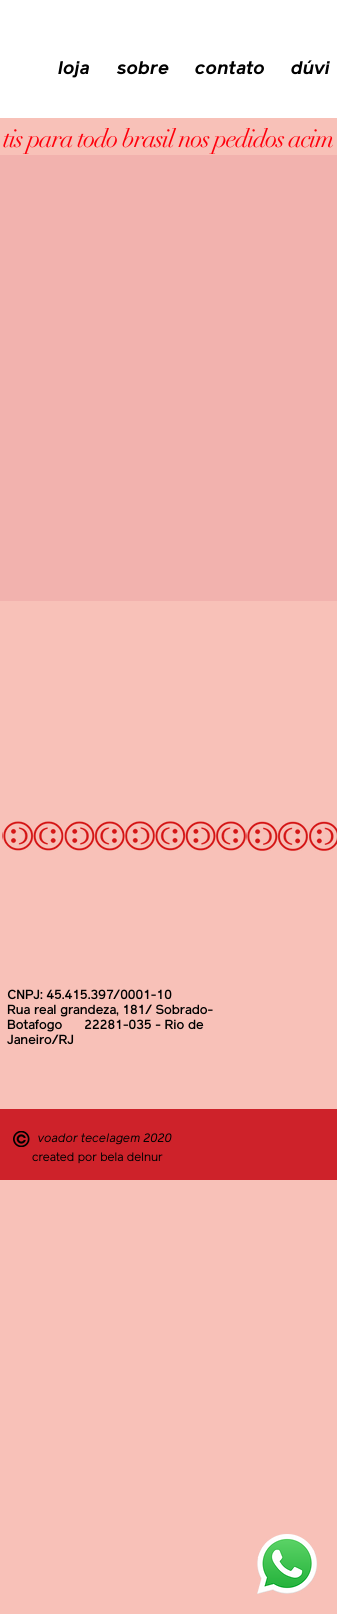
#include <cairo/cairo.h>
#include <math.h>
#include <stddef.h>


static void draw_spaced(cairo_t *cr, double x, double y, const char *s, double letter, double word) {
  cairo_move_to(cr, x, y);
  while (*s) {
    char ch[5] = {0};
    int n = 0;
    do ch[n++] = *s++; while ((*s & 0xC0) == 0x80);
    cairo_show_text(cr, ch);
    cairo_rel_move_to(cr, letter + word * (*ch == ' '), 0);
  }
}

static void draw_image(cairo_t *cr, const char *path, double x, double y, double w, double h) {
  cairo_surface_t *image = cairo_image_surface_create_from_png(path);
  cairo_save(cr);
  cairo_set_source_surface(cr, image, x, y);
  cairo_rectangle(cr, x, y, w, h);
  cairo_fill(cr);
  cairo_restore(cr);
  cairo_surface_destroy(image);
}

static void draw(cairo_t *cr) {
  cairo_set_source_rgb(cr, 248 / 255.0, 193 / 255.0, 184 / 255.0);
  cairo_paint(cr);
  cairo_set_source_rgb(cr, 1, 1, 1);
  cairo_rectangle(cr, 0, 0, 337, 118);
  cairo_fill(cr);
  cairo_set_source_rgb(cr, 242 / 255.0, 178 / 255.0, 174 / 255.0);
  cairo_rectangle(cr, 0, 155, 337, 446);
  cairo_fill(cr);
  draw_image(cr, "images/1.png", 2, 821, 244, 30);
  draw_image(cr, "images/2.png", 246, 821, 91, 30);
  cairo_set_source_rgb(cr, 206 / 255.0, 34 / 255.0, 42 / 255.0);
  cairo_rectangle(cr, 0, 1109, 337, 71);
  cairo_fill(cr);
  draw_image(cr, "images/3.png", 13, 1131, 17, 16);
  draw_image(cr, "images/4.png", 257, 1534, 60, 60);
  cairo_select_font_face(cr, "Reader", CAIRO_FONT_SLANT_ITALIC, CAIRO_FONT_WEIGHT_BOLD);
  cairo_set_font_size(cr, 18);
  cairo_set_source_rgb(cr, 0, 0, 0);
  cairo_move_to(cr, 58, 74);
  cairo_show_text(cr, "loja");
  cairo_move_to(cr, 117, 74);
  cairo_show_text(cr, "sobre");
  cairo_move_to(cr, 195, 74);
  cairo_show_text(cr, "contato");
  cairo_move_to(cr, 291, 74);
  cairo_show_text(cr, "dúvi");
  cairo_select_font_face(cr, "didot", CAIRO_FONT_SLANT_NORMAL, CAIRO_FONT_WEIGHT_NORMAL);
  cairo_set_font_size(cr, 25);
  cairo_set_source_rgb(cr, 1, 0, 12 / 255.0);
  draw_spaced(cr, 3, 147, "tis para todo brasil nos pedidos acim", -1.25, 0);
  cairo_select_font_face(cr, "Reader Medium", CAIRO_FONT_SLANT_NORMAL, CAIRO_FONT_WEIGHT_NORMAL);
  cairo_set_font_size(cr, 13);
  cairo_set_source_rgb(cr, 0, 0, 0);
  cairo_move_to(cr, 7, 999);
  cairo_show_text(cr, "CNPJ: 45.415.397/0001-10");
  cairo_move_to(cr, 7, 1014);
  cairo_show_text(cr, "Rua real grandeza, 181/ Sobrado-");
  cairo_move_to(cr, 7, 1029);
  cairo_show_text(cr, "Botafogo      22281-035 - Rio de");
  cairo_move_to(cr, 7, 1044);
  cairo_show_text(cr, "Janeiro/RJ");
  cairo_select_font_face(cr, "Reader", CAIRO_FONT_SLANT_ITALIC, CAIRO_FONT_WEIGHT_NORMAL);
  cairo_set_font_size(cr, 12);
  cairo_move_to(cr, 38, 1142);
  cairo_show_text(cr, "voador tecelagem 2020");
  cairo_select_font_face(cr, "Reader", CAIRO_FONT_SLANT_NORMAL, CAIRO_FONT_WEIGHT_NORMAL);
  cairo_move_to(cr, 32, 1161);
  cairo_show_text(cr, "created por bela delnur");
}

int main(void) {
  cairo_surface_t *surface = cairo_image_surface_create(CAIRO_FORMAT_RGB24, 337, 1614);
  cairo_t *cr = cairo_create(surface);
  cairo_font_options_t *options = cairo_font_options_create();
  cairo_font_options_set_hint_metrics(options, CAIRO_HINT_METRICS_OFF);
  cairo_font_options_set_hint_style(options, CAIRO_HINT_STYLE_NONE);
  cairo_set_font_options(cr, options);
  cairo_set_miter_limit(cr, 4);
  draw(cr);
  cairo_surface_write_to_png(surface, "out.png");
  cairo_font_options_destroy(options);
  cairo_destroy(cr);
  cairo_surface_destroy(surface);
  return 0;
}
